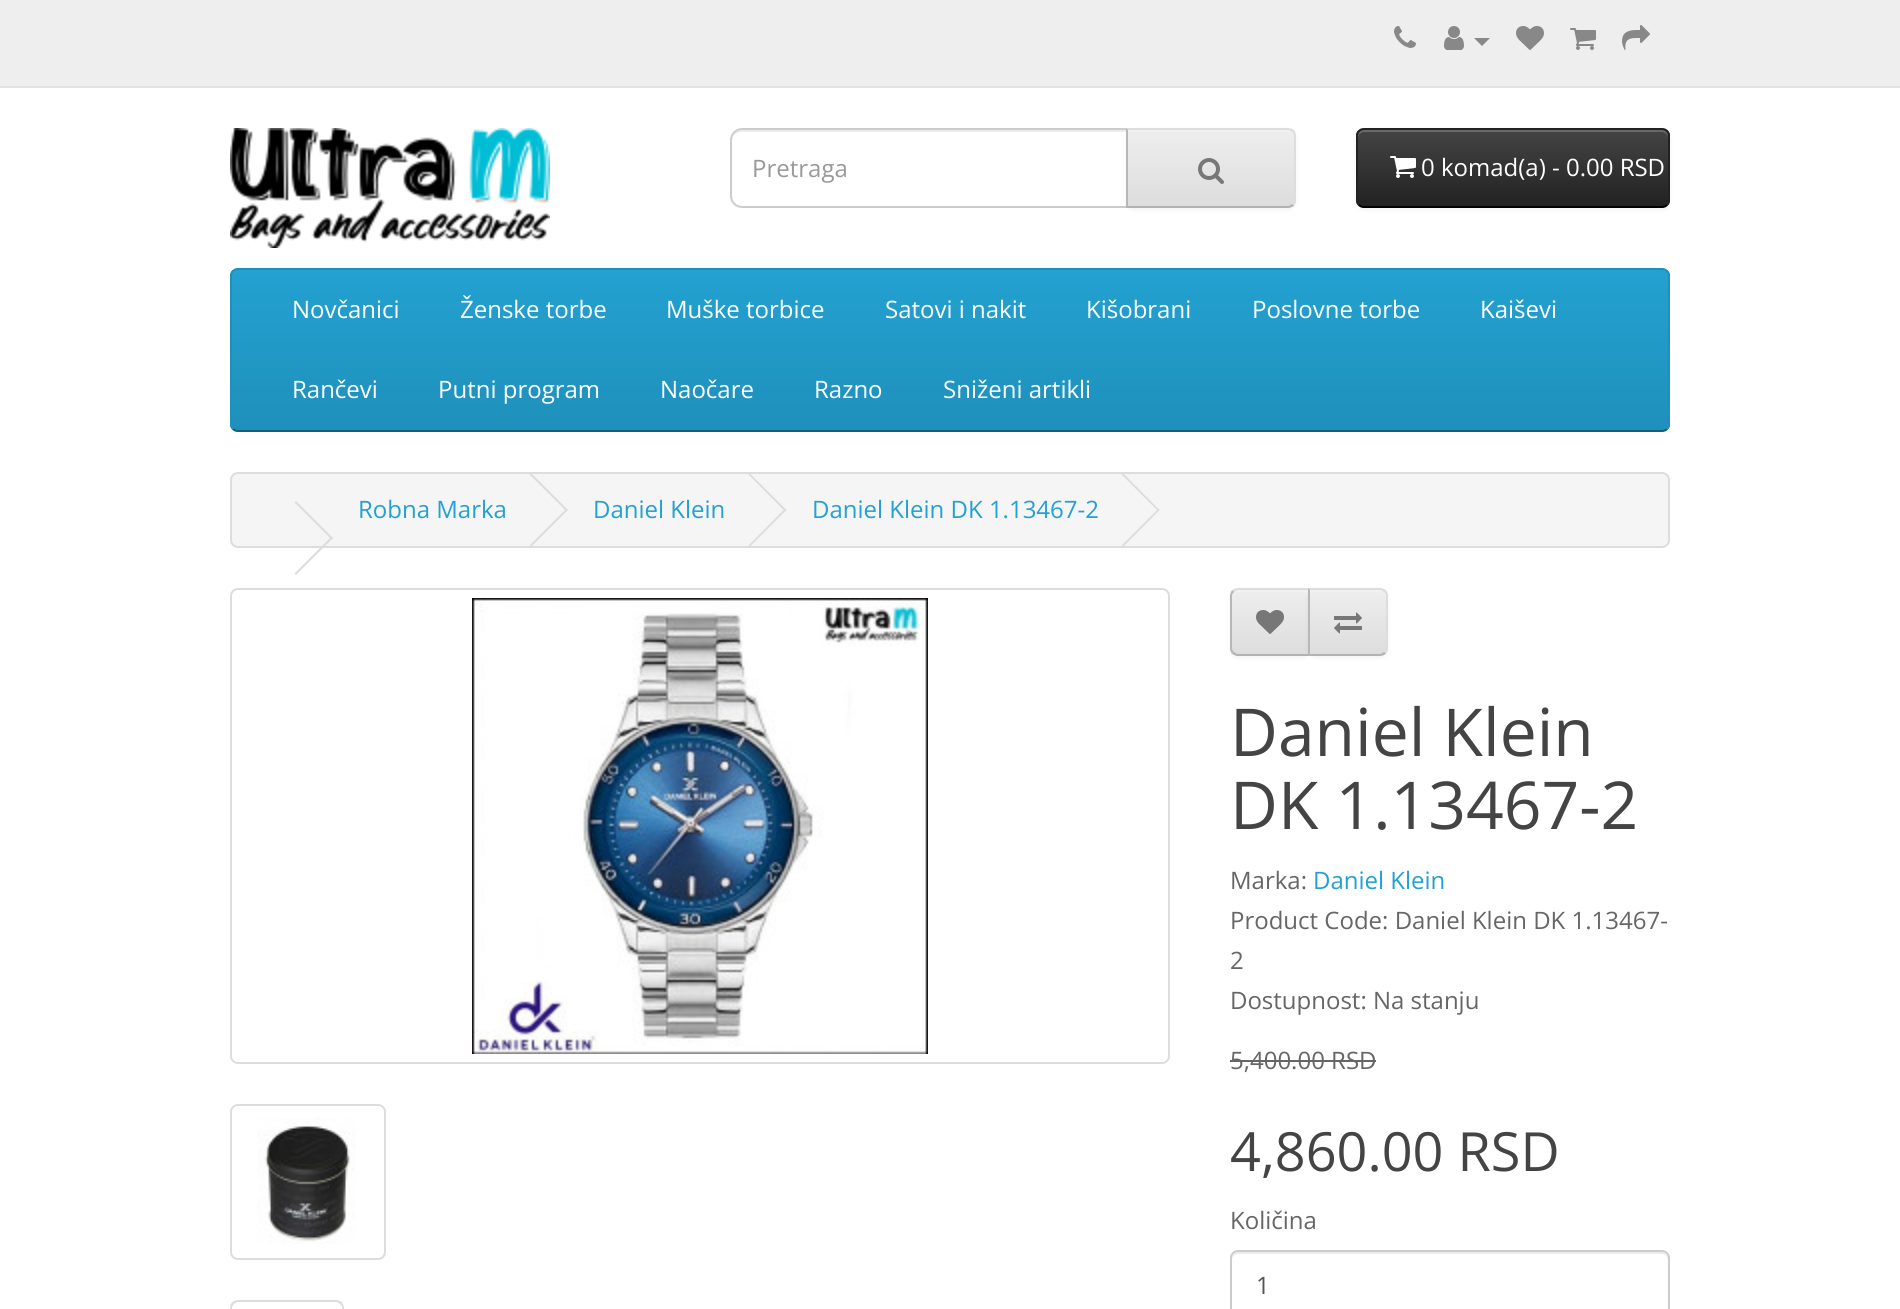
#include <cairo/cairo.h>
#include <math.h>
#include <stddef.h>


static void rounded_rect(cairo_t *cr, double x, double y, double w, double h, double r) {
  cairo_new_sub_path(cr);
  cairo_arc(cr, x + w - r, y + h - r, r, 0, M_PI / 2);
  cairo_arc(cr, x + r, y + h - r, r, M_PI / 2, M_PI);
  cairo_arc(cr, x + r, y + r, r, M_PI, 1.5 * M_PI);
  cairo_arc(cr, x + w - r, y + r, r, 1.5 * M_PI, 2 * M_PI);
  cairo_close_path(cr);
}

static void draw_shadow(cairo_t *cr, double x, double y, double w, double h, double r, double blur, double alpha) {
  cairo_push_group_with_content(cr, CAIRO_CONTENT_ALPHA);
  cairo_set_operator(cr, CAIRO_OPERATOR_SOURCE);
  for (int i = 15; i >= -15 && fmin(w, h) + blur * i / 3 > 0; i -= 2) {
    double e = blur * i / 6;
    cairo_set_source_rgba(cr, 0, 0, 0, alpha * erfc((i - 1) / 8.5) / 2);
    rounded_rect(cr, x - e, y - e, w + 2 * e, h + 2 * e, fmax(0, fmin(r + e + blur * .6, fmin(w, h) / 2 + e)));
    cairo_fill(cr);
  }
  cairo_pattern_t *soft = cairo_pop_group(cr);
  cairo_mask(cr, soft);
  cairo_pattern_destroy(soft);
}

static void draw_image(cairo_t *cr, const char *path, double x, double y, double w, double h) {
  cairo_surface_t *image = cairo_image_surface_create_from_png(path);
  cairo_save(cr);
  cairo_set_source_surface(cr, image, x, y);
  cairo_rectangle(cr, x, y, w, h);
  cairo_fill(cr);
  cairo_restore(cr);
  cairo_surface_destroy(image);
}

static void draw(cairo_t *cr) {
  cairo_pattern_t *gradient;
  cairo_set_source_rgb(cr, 1, 1, 1);
  cairo_paint(cr);
  cairo_set_source_rgb(cr, 238 / 255.0, 238 / 255.0, 238 / 255.0);
  cairo_rectangle(cr, 0, 0, 1900, 86);
  cairo_fill(cr);
  cairo_set_source_rgb(cr, 226 / 255.0, 226 / 255.0, 226 / 255.0);
  cairo_rectangle(cr, 0, 86, 1900, 2);
  cairo_fill(cr);
  draw_image(cr, "images/1.png", 1394, 26, 22, 22);
  draw_image(cr, "images/2.png", 1444, 26, 20, 24);
  cairo_set_source_rgb(cr, 136 / 255.0, 136 / 255.0, 136 / 255.0);
  cairo_new_path(cr);
  cairo_move_to(cr, 1474, 38);
  cairo_line_to(cr, 1490, 38);
  cairo_line_to(cr, 1482, 46);
  cairo_close_path(cr);
  cairo_fill(cr);
  draw_image(cr, "images/3.png", 1516, 26, 28, 24);
  draw_image(cr, "images/4.png", 1570, 28, 26, 22);
  draw_image(cr, "images/5.png", 1622, 25, 28, 25);
  draw_image(cr, "images/6.png", 230, 128, 320, 120);
  cairo_set_source_rgb(cr, 236 / 255.0, 236 / 255.0, 236 / 255.0);
  cairo_new_path(cr);
  cairo_move_to(cr, 742, 132);
  cairo_line_to(cr, 1126, 132);
  cairo_line_to(cr, 1126, 130);
  cairo_line_to(cr, 740, 130);
  cairo_curve_to(cr, 734, 131, 732, 137, 732, 142);
  cairo_curve_to(cr, 732, 136, 736, 132, 742, 132);
  cairo_close_path(cr);
  cairo_fill(cr);
  cairo_new_path(cr);
  cairo_move_to(cr, 742, 129);
  cairo_line_to(cr, 1127, 129);
  cairo_line_to(cr, 1127, 207);
  cairo_line_to(cr, 742, 207);
  cairo_curve_to(cr, 736, 207, 731, 202, 731, 196);
  cairo_line_to(cr, 731, 140);
  cairo_curve_to(cr, 731, 134, 736, 129, 742, 129);
  cairo_close_path(cr);
  cairo_set_source_rgb(cr, 204 / 255.0, 204 / 255.0, 204 / 255.0);
  cairo_stroke(cr);
  cairo_set_source_rgb(cr, 0, 0, 0);
  draw_shadow(cr, 1126, 130, 170, 80, 8, 2, 0.05);
  cairo_save(cr);
  cairo_new_path(cr);
  cairo_move_to(cr, 1126, 128);
  cairo_line_to(cr, 1288, 128);
  cairo_curve_to(cr, 1292.5, 128, 1296, 131.5, 1296, 136);
  cairo_line_to(cr, 1296, 200);
  cairo_curve_to(cr, 1296, 204.5, 1292.5, 208, 1288, 208);
  cairo_line_to(cr, 1126, 208);
  cairo_close_path(cr);
  cairo_clip(cr);
  gradient = cairo_pattern_create_linear(1211, 130, 1211, 206);
  cairo_pattern_add_color_stop_rgba(gradient, 0, 238 / 255.0, 238 / 255.0, 238 / 255.0, 1);
  cairo_pattern_add_color_stop_rgba(gradient, 1, 221 / 255.0, 221 / 255.0, 221 / 255.0, 1);
  cairo_set_source(cr, gradient);
  cairo_pattern_destroy(gradient);
  cairo_rectangle(cr, 1128, 130, 168, 76);
  cairo_fill(cr);
  cairo_restore(cr);
  cairo_set_source_rgb(cr, 241 / 255.0, 241 / 255.0, 241 / 255.0);
  cairo_new_path(cr);
  cairo_move_to(cr, 1128, 132);
  cairo_line_to(cr, 1288, 132);
  cairo_curve_to(cr, 1291, 132, 1294, 135, 1294, 138);
  cairo_line_to(cr, 1294, 136);
  cairo_curve_to(cr, 1294, 133, 1291, 130, 1288, 130);
  cairo_line_to(cr, 1128, 130);
  cairo_close_path(cr);
  cairo_fill(cr);
  cairo_set_source_rgb(cr, 221 / 255.0, 221 / 255.0, 221 / 255.0);
  cairo_new_path(cr);
  cairo_move_to(cr, 1126, 128);
  cairo_line_to(cr, 1128, 130);
  cairo_line_to(cr, 1289, 130);
  cairo_line_to(cr, 1292, 132);
  cairo_line_to(cr, 1294, 130);
  cairo_curve_to(cr, 1292, 129, 1290, 128, 1288, 128);
  cairo_close_path(cr);
  cairo_fill(cr);
  cairo_new_path(cr);
  cairo_move_to(cr, 1296, 200);
  cairo_line_to(cr, 1296, 136);
  cairo_curve_to(cr, 1296, 134, 1295, 132, 1294, 130);
  cairo_line_to(cr, 1292, 132);
  cairo_curve_to(cr, 1293, 133, 1294, 134, 1294, 136);
  cairo_line_to(cr, 1294, 200);
  cairo_curve_to(cr, 1294, 202, 1293, 203, 1292, 204);
  cairo_line_to(cr, 1294, 206);
  cairo_curve_to(cr, 1295, 204, 1296, 202, 1296, 200);
  cairo_close_path(cr);
  cairo_fill(cr);
  cairo_set_source_rgb(cr, 179 / 255.0, 179 / 255.0, 179 / 255.0);
  cairo_new_path(cr);
  cairo_move_to(cr, 1288, 208);
  cairo_curve_to(cr, 1290, 208, 1292, 207, 1294, 206);
  cairo_line_to(cr, 1292, 204);
  cairo_line_to(cr, 1289, 206);
  cairo_line_to(cr, 1128, 206);
  cairo_line_to(cr, 1126, 208);
  cairo_close_path(cr);
  cairo_fill(cr);
  cairo_set_source_rgb(cr, 183 / 255.0, 183 / 255.0, 183 / 255.0);
  cairo_new_path(cr);
  cairo_move_to(cr, 1126, 128);
  cairo_line_to(cr, 1126, 208);
  cairo_line_to(cr, 1128, 206);
  cairo_line_to(cr, 1128, 130);
  cairo_close_path(cr);
  cairo_fill(cr);
  draw_image(cr, "images/7.png", 1198, 158, 26, 26);
  cairo_set_source_rgb(cr, 0, 0, 0);
  draw_shadow(cr, 1356, 130, 314, 80, 8, 2, 0.05);
  cairo_save(cr);
  rounded_rect(cr, 1356, 128, 314, 80, 8);
  cairo_clip(cr);
  gradient = cairo_pattern_create_linear(1513, 130, 1513, 206);
  cairo_pattern_add_color_stop_rgba(gradient, 0, 68 / 255.0, 68 / 255.0, 68 / 255.0, 1);
  cairo_pattern_add_color_stop_rgba(gradient, 1, 34 / 255.0, 34 / 255.0, 34 / 255.0, 1);
  cairo_set_source(cr, gradient);
  cairo_pattern_destroy(gradient);
  cairo_rectangle(cr, 1356, 130, 314, 76);
  cairo_fill(cr);
  cairo_restore(cr);
  cairo_set_source_rgb(cr, 105 / 255.0, 105 / 255.0, 105 / 255.0);
  cairo_new_path(cr);
  cairo_move_to(cr, 1364, 132);
  cairo_line_to(cr, 1662, 132);
  cairo_curve_to(cr, 1665, 132, 1668, 135, 1668, 138);
  cairo_line_to(cr, 1668, 136);
  cairo_curve_to(cr, 1668, 133, 1665, 130, 1662, 130);
  cairo_line_to(cr, 1364, 130);
  cairo_curve_to(cr, 1361, 130, 1358, 133, 1358, 136);
  cairo_line_to(cr, 1358, 138);
  cairo_curve_to(cr, 1358, 135, 1361, 132, 1364, 132);
  cairo_close_path(cr);
  cairo_fill(cr);
  cairo_new_path(cr);
  cairo_move_to(cr, 1667, 205);
  cairo_curve_to(cr, 1665.5, 206.5, 1664, 207, 1662, 207);
  cairo_line_to(cr, 1364, 207);
  cairo_curve_to(cr, 1362, 207, 1360.5, 206.5, 1359, 205);
  cairo_set_source_rgb(cr, 0, 0, 0);
  cairo_stroke(cr);
  cairo_new_path(cr);
  cairo_move_to(cr, 1359, 205);
  cairo_curve_to(cr, 1357.5, 203.5, 1357, 202, 1357, 200);
  cairo_line_to(cr, 1357, 136);
  cairo_curve_to(cr, 1357, 134, 1357.5, 132.5, 1359, 131);
  cairo_curve_to(cr, 1360.5, 129.5, 1362, 129, 1364, 129);
  cairo_line_to(cr, 1662, 129);
  cairo_curve_to(cr, 1664, 129, 1665.5, 129.5, 1667, 131);
  cairo_curve_to(cr, 1668.5, 132.5, 1669, 134, 1669, 136);
  cairo_line_to(cr, 1669, 200);
  cairo_curve_to(cr, 1669, 202, 1668.5, 203.5, 1667, 205);
  cairo_set_source_rgb(cr, 34 / 255.0, 34 / 255.0, 34 / 255.0);
  cairo_stroke(cr);
  draw_image(cr, "images/8.png", 1390, 156, 26, 22);
  cairo_save(cr);
  rounded_rect(cr, 230, 268, 1440, 164, 8);
  cairo_clip(cr);
  gradient = cairo_pattern_create_linear(950, 270, 950, 430);
  cairo_pattern_add_color_stop_rgba(gradient, 0, 35 / 255.0, 161 / 255.0, 209 / 255.0, 1);
  cairo_pattern_add_color_stop_rgba(gradient, 1, 31 / 255.0, 144 / 255.0, 187 / 255.0, 1);
  cairo_set_source(cr, gradient);
  cairo_pattern_destroy(gradient);
  cairo_rectangle(cr, 230, 270, 1440, 160);
  cairo_fill(cr);
  cairo_restore(cr);
  cairo_new_path(cr);
  cairo_move_to(cr, 1667, 429);
  cairo_curve_to(cr, 1665.5, 430.5, 1664, 431, 1662, 431);
  cairo_line_to(cr, 238, 431);
  cairo_curve_to(cr, 236, 431, 234.5, 430.5, 233, 429);
  cairo_set_source_rgb(cr, 20 / 255.0, 94 / 255.0, 122 / 255.0);
  cairo_stroke(cr);
  cairo_new_path(cr);
  cairo_move_to(cr, 233, 429);
  cairo_curve_to(cr, 231.5, 427.5, 231, 426, 231, 424);
  cairo_line_to(cr, 231, 276);
  cairo_curve_to(cr, 231, 274, 231.5, 272.5, 233, 271);
  cairo_curve_to(cr, 234.5, 269.5, 236, 269, 238, 269);
  cairo_line_to(cr, 1662, 269);
  cairo_curve_to(cr, 1664, 269, 1665.5, 269.5, 1667, 271);
  cairo_curve_to(cr, 1668.5, 272.5, 1669, 274, 1669, 276);
  cairo_line_to(cr, 1669, 424);
  cairo_curve_to(cr, 1669, 426, 1668.5, 427.5, 1667, 429);
  cairo_set_source_rgb(cr, 31 / 255.0, 144 / 255.0, 187 / 255.0);
  cairo_stroke(cr);
  cairo_set_source_rgb(cr, 245 / 255.0, 245 / 255.0, 245 / 255.0);
  rounded_rect(cr, 231, 473, 1438, 74, 7);
  cairo_fill_preserve(cr);
  cairo_set_source_rgb(cr, 221 / 255.0, 221 / 255.0, 221 / 255.0);
  cairo_stroke(cr);
  cairo_new_path(cr);
  cairo_move_to(cr, 294.5, 502.5);
  cairo_line_to(cr, 296, 501);
  cairo_line_to(cr, 333, 538);
  cairo_line_to(cr, 331.5, 539.5);
  cairo_close_path(cr);
  cairo_fill(cr);
  cairo_new_path(cr);
  cairo_move_to(cr, 294.5, 573.5);
  cairo_line_to(cr, 331.5, 536.5);
  cairo_line_to(cr, 333, 538);
  cairo_line_to(cr, 296, 575);
  cairo_close_path(cr);
  cairo_fill(cr);
  cairo_new_path(cr);
  cairo_move_to(cr, 529.5, 474.5);
  cairo_line_to(cr, 531, 473);
  cairo_line_to(cr, 568, 510);
  cairo_line_to(cr, 566.5, 511.5);
  cairo_close_path(cr);
  cairo_fill(cr);
  cairo_new_path(cr);
  cairo_move_to(cr, 529.5, 545.5);
  cairo_line_to(cr, 566.5, 508.5);
  cairo_line_to(cr, 568, 510);
  cairo_line_to(cr, 531, 547);
  cairo_close_path(cr);
  cairo_fill(cr);
  cairo_new_path(cr);
  cairo_move_to(cr, 748.5, 474.5);
  cairo_line_to(cr, 749.5, 473);
  cairo_line_to(cr, 786.5, 510);
  cairo_line_to(cr, 785, 511.5);
  cairo_close_path(cr);
  cairo_fill(cr);
  cairo_new_path(cr);
  cairo_move_to(cr, 748.5, 545.5);
  cairo_line_to(cr, 785, 508.5);
  cairo_line_to(cr, 786.5, 510);
  cairo_line_to(cr, 749.5, 547);
  cairo_close_path(cr);
  cairo_fill(cr);
  cairo_new_path(cr);
  cairo_move_to(cr, 1121.5, 474.5);
  cairo_line_to(cr, 1123, 473);
  cairo_line_to(cr, 1159.5, 510);
  cairo_line_to(cr, 1158.5, 511.5);
  cairo_close_path(cr);
  cairo_fill(cr);
  cairo_new_path(cr);
  cairo_move_to(cr, 1121.5, 545.5);
  cairo_line_to(cr, 1158.5, 508.5);
  cairo_line_to(cr, 1159.5, 510);
  cairo_line_to(cr, 1123, 547);
  cairo_close_path(cr);
  cairo_fill(cr);
  rounded_rect(cr, 231, 589, 938, 474, 7);
  cairo_stroke(cr);
  draw_image(cr, "images/9.png", 472, 598, 456, 456);
  rounded_rect(cr, 231, 1105, 154, 154, 7);
  cairo_stroke(cr);
  draw_image(cr, "images/10.png", 257, 1118, 99, 126);
  cairo_new_path(cr);
  cairo_move_to(cr, 238, 1300);
  cairo_curve_to(cr, 236, 1300, 234, 1301, 232, 1302);
  cairo_line_to(cr, 234, 1304);
  cairo_line_to(cr, 237, 1302);
  cairo_line_to(cr, 337, 1302);
  cairo_line_to(cr, 340, 1304);
  cairo_line_to(cr, 342, 1302);
  cairo_curve_to(cr, 340, 1301, 338, 1300, 336, 1300);
  cairo_close_path(cr);
  cairo_fill(cr);
  cairo_new_path(cr);
  cairo_move_to(cr, 344, 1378);
  cairo_line_to(cr, 344, 1308);
  cairo_curve_to(cr, 344, 1306, 343, 1304, 342, 1302);
  cairo_line_to(cr, 340, 1304);
  cairo_curve_to(cr, 341, 1305, 342, 1306, 342, 1308);
  cairo_line_to(cr, 342, 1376);
  cairo_close_path(cr);
  cairo_fill(cr);
  cairo_new_path(cr);
  cairo_move_to(cr, 230, 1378);
  cairo_line_to(cr, 232, 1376);
  cairo_line_to(cr, 232, 1308);
  cairo_curve_to(cr, 232, 1306, 233, 1305, 234, 1304);
  cairo_line_to(cr, 232, 1302);
  cairo_curve_to(cr, 231, 1304, 230, 1306, 230, 1308);
  cairo_close_path(cr);
  cairo_fill(cr);
  cairo_set_source_rgb(cr, 0, 0, 0);
  draw_shadow(cr, 1230, 590, 80, 68, 8, 2, 0.05);
  cairo_save(cr);
  cairo_new_path(cr);
  cairo_move_to(cr, 1238, 588);
  cairo_line_to(cr, 1310, 588);
  cairo_line_to(cr, 1310, 656);
  cairo_line_to(cr, 1238, 656);
  cairo_curve_to(cr, 1233.5, 656, 1230, 652.5, 1230, 648);
  cairo_line_to(cr, 1230, 596);
  cairo_curve_to(cr, 1230, 591.5, 1233.5, 588, 1238, 588);
  cairo_close_path(cr);
  cairo_clip(cr);
  gradient = cairo_pattern_create_linear(1270, 590, 1270, 654);
  cairo_pattern_add_color_stop_rgba(gradient, 0, 238 / 255.0, 238 / 255.0, 238 / 255.0, 1);
  cairo_pattern_add_color_stop_rgba(gradient, 1, 221 / 255.0, 221 / 255.0, 221 / 255.0, 1);
  cairo_set_source(cr, gradient);
  cairo_pattern_destroy(gradient);
  cairo_rectangle(cr, 1230, 590, 78, 64);
  cairo_fill(cr);
  cairo_restore(cr);
  cairo_set_source_rgb(cr, 241 / 255.0, 241 / 255.0, 241 / 255.0);
  cairo_new_path(cr);
  cairo_move_to(cr, 1238, 592);
  cairo_line_to(cr, 1308, 592);
  cairo_line_to(cr, 1308, 590);
  cairo_line_to(cr, 1238, 590);
  cairo_curve_to(cr, 1235, 590, 1232, 593, 1232, 596);
  cairo_line_to(cr, 1232, 598);
  cairo_curve_to(cr, 1232, 595, 1235, 592, 1238, 592);
  cairo_close_path(cr);
  cairo_fill(cr);
  cairo_set_source_rgb(cr, 221 / 255.0, 221 / 255.0, 221 / 255.0);
  cairo_new_path(cr);
  cairo_move_to(cr, 1238, 588);
  cairo_curve_to(cr, 1236, 588, 1234, 589, 1232, 590);
  cairo_line_to(cr, 1234, 592);
  cairo_line_to(cr, 1237, 590);
  cairo_line_to(cr, 1308, 590);
  cairo_line_to(cr, 1310, 588);
  cairo_close_path(cr);
  cairo_fill(cr);
  cairo_set_source_rgb(cr, 179 / 255.0, 179 / 255.0, 179 / 255.0);
  cairo_new_path(cr);
  cairo_move_to(cr, 1310, 656);
  cairo_line_to(cr, 1308, 654);
  cairo_line_to(cr, 1237, 654);
  cairo_line_to(cr, 1234, 652);
  cairo_line_to(cr, 1232, 654);
  cairo_curve_to(cr, 1234, 655, 1236, 656, 1238, 656);
  cairo_close_path(cr);
  cairo_fill(cr);
  cairo_set_source_rgb(cr, 183 / 255.0, 183 / 255.0, 183 / 255.0);
  cairo_new_path(cr);
  cairo_move_to(cr, 1230, 596);
  cairo_line_to(cr, 1230, 648);
  cairo_curve_to(cr, 1230, 650, 1231, 652, 1232, 654);
  cairo_line_to(cr, 1234, 652);
  cairo_curve_to(cr, 1233, 651, 1232, 650, 1232, 648);
  cairo_line_to(cr, 1232, 596);
  cairo_curve_to(cr, 1232, 594, 1233, 593, 1234, 592);
  cairo_line_to(cr, 1232, 590);
  cairo_curve_to(cr, 1231, 592, 1230, 594, 1230, 596);
  cairo_close_path(cr);
  cairo_fill(cr);
  draw_image(cr, "images/11.png", 1256, 610, 28, 24);
  cairo_set_source_rgb(cr, 0, 0, 0);
  draw_shadow(cr, 1308, 590, 80, 68, 8, 2, 0.05);
  cairo_save(cr);
  cairo_new_path(cr);
  cairo_move_to(cr, 1308, 588);
  cairo_line_to(cr, 1380, 588);
  cairo_curve_to(cr, 1384.5, 588, 1388, 591.5, 1388, 596);
  cairo_line_to(cr, 1388, 648);
  cairo_curve_to(cr, 1388, 652.5, 1384.5, 656, 1380, 656);
  cairo_line_to(cr, 1308, 656);
  cairo_close_path(cr);
  cairo_clip(cr);
  gradient = cairo_pattern_create_linear(1348, 590, 1348, 654);
  cairo_pattern_add_color_stop_rgba(gradient, 0, 238 / 255.0, 238 / 255.0, 238 / 255.0, 1);
  cairo_pattern_add_color_stop_rgba(gradient, 1, 221 / 255.0, 221 / 255.0, 221 / 255.0, 1);
  cairo_set_source(cr, gradient);
  cairo_pattern_destroy(gradient);
  cairo_rectangle(cr, 1310, 590, 78, 64);
  cairo_fill(cr);
  cairo_restore(cr);
  cairo_set_source_rgb(cr, 241 / 255.0, 241 / 255.0, 241 / 255.0);
  cairo_new_path(cr);
  cairo_move_to(cr, 1310, 592);
  cairo_line_to(cr, 1380, 592);
  cairo_curve_to(cr, 1383, 592, 1386, 595, 1386, 598);
  cairo_line_to(cr, 1386, 596);
  cairo_curve_to(cr, 1386, 593, 1383, 590, 1380, 590);
  cairo_line_to(cr, 1310, 590);
  cairo_close_path(cr);
  cairo_fill(cr);
  cairo_set_source_rgb(cr, 221 / 255.0, 221 / 255.0, 221 / 255.0);
  cairo_new_path(cr);
  cairo_move_to(cr, 1308, 588);
  cairo_line_to(cr, 1310, 590);
  cairo_line_to(cr, 1381, 590);
  cairo_line_to(cr, 1384, 592);
  cairo_line_to(cr, 1386, 590);
  cairo_curve_to(cr, 1384, 589, 1382, 588, 1380, 588);
  cairo_close_path(cr);
  cairo_fill(cr);
  cairo_new_path(cr);
  cairo_move_to(cr, 1388, 648);
  cairo_line_to(cr, 1388, 596);
  cairo_curve_to(cr, 1388, 594, 1387, 592, 1386, 590);
  cairo_line_to(cr, 1384, 592);
  cairo_curve_to(cr, 1385, 593, 1386, 594, 1386, 596);
  cairo_line_to(cr, 1386, 648);
  cairo_curve_to(cr, 1386, 650, 1385, 651, 1384, 652);
  cairo_line_to(cr, 1386, 654);
  cairo_curve_to(cr, 1387, 652, 1388, 650, 1388, 648);
  cairo_close_path(cr);
  cairo_fill(cr);
  cairo_set_source_rgb(cr, 179 / 255.0, 179 / 255.0, 179 / 255.0);
  cairo_new_path(cr);
  cairo_move_to(cr, 1380, 656);
  cairo_curve_to(cr, 1382, 656, 1384, 655, 1386, 654);
  cairo_line_to(cr, 1384, 652);
  cairo_line_to(cr, 1381, 654);
  cairo_line_to(cr, 1310, 654);
  cairo_line_to(cr, 1308, 656);
  cairo_close_path(cr);
  cairo_fill(cr);
  cairo_set_source_rgb(cr, 183 / 255.0, 183 / 255.0, 183 / 255.0);
  cairo_new_path(cr);
  cairo_move_to(cr, 1308, 588);
  cairo_line_to(cr, 1308, 656);
  cairo_line_to(cr, 1310, 654);
  cairo_line_to(cr, 1310, 590);
  cairo_close_path(cr);
  cairo_fill(cr);
  draw_image(cr, "images/12.png", 1334, 612, 28, 22);
  cairo_set_source_rgb(cr, 102 / 255.0, 102 / 255.0, 102 / 255.0);
  cairo_rectangle(cr, 1230, 1060, 146, 2);
  cairo_fill(cr);
  cairo_set_source_rgb(cr, 236 / 255.0, 236 / 255.0, 236 / 255.0);
  cairo_new_path(cr);
  cairo_move_to(cr, 1238, 1254);
  cairo_line_to(cr, 1662, 1254);
  cairo_curve_to(cr, 1665, 1254, 1668, 1257, 1668, 1260);
  cairo_line_to(cr, 1668, 1258);
  cairo_curve_to(cr, 1668, 1255, 1665, 1252, 1662, 1252);
  cairo_line_to(cr, 1238, 1252);
  cairo_curve_to(cr, 1235, 1252, 1232, 1255, 1232, 1258);
  cairo_line_to(cr, 1232, 1260);
  cairo_curve_to(cr, 1232, 1257, 1235, 1254, 1238, 1254);
  cairo_close_path(cr);
  cairo_fill(cr);
  rounded_rect(cr, 1231, 1251, 438, 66, 7);
  cairo_set_source_rgb(cr, 204 / 255.0, 204 / 255.0, 204 / 255.0);
  cairo_stroke(cr);
  cairo_select_font_face(cr, "Open Sans", CAIRO_FONT_SLANT_NORMAL, CAIRO_FONT_WEIGHT_NORMAL);
  cairo_set_font_size(cr, 24);
  cairo_set_source_rgb(cr, 153 / 255.0, 153 / 255.0, 153 / 255.0);
  cairo_move_to(cr, 752, 177);
  cairo_show_text(cr, "Pretraga");
  cairo_set_source_rgb(cr, 1, 1, 1);
  cairo_move_to(cr, 1421, 176);
  cairo_show_text(cr, "0 komad(a) - 0.00 RSD");
  cairo_move_to(cr, 292, 318);
  cairo_show_text(cr, "Novčanici");
  cairo_move_to(cr, 460, 318);
  cairo_show_text(cr, "Ženske torbe");
  cairo_move_to(cr, 666, 318);
  cairo_show_text(cr, "Muške torbice");
  cairo_move_to(cr, 885, 318);
  cairo_show_text(cr, "Satovi i nakit");
  cairo_move_to(cr, 1086, 318);
  cairo_show_text(cr, "Kišobrani");
  cairo_move_to(cr, 1252, 318);
  cairo_show_text(cr, "Poslovne torbe");
  cairo_move_to(cr, 1480, 318);
  cairo_show_text(cr, "Kaiševi");
  cairo_move_to(cr, 292, 398);
  cairo_show_text(cr, "Rančevi");
  cairo_move_to(cr, 438, 398);
  cairo_show_text(cr, "Putni program");
  cairo_move_to(cr, 660, 398);
  cairo_show_text(cr, "Naočare");
  cairo_move_to(cr, 814, 398);
  cairo_show_text(cr, "Razno");
  cairo_move_to(cr, 943, 398);
  cairo_show_text(cr, "Sniženi artikli");
  cairo_set_source_rgb(cr, 35 / 255.0, 161 / 255.0, 209 / 255.0);
  cairo_move_to(cr, 358, 518);
  cairo_show_text(cr, "Robna Marka");
  cairo_move_to(cr, 593, 518);
  cairo_show_text(cr, "Daniel Klein");
  cairo_move_to(cr, 812, 518);
  cairo_show_text(cr, "Daniel Klein DK 1.13467-2");
  cairo_set_font_size(cr, 66);
  cairo_set_source_rgb(cr, 68 / 255.0, 68 / 255.0, 68 / 255.0);
  cairo_move_to(cr, 1230, 756);
  cairo_show_text(cr, "Daniel Klein");
  cairo_move_to(cr, 1230, 829);
  cairo_show_text(cr, "DK 1.13467-2");
  cairo_set_font_size(cr, 24);
  cairo_set_source_rgb(cr, 102 / 255.0, 102 / 255.0, 102 / 255.0);
  cairo_move_to(cr, 1230, 889);
  cairo_show_text(cr, "Marka:");
  cairo_set_source_rgb(cr, 35 / 255.0, 161 / 255.0, 209 / 255.0);
  cairo_move_to(cr, 1313, 889);
  cairo_show_text(cr, "Daniel Klein");
  cairo_set_source_rgb(cr, 102 / 255.0, 102 / 255.0, 102 / 255.0);
  cairo_move_to(cr, 1230, 929);
  cairo_show_text(cr, "Product Code: Daniel Klein DK 1.13467-");
  cairo_move_to(cr, 1230, 969);
  cairo_show_text(cr, "2");
  cairo_move_to(cr, 1230, 1009);
  cairo_show_text(cr, "Dostupnost: Na stanju");
  cairo_move_to(cr, 1230, 1069);
  cairo_show_text(cr, "5,400.00 RSD");
  cairo_set_font_size(cr, 54);
  cairo_set_source_rgb(cr, 68 / 255.0, 68 / 255.0, 68 / 255.0);
  cairo_move_to(cr, 1230, 1171);
  cairo_show_text(cr, "4,860.00 RSD");
  cairo_set_font_size(cr, 24);
  cairo_set_source_rgb(cr, 102 / 255.0, 102 / 255.0, 102 / 255.0);
  cairo_move_to(cr, 1230, 1229);
  cairo_show_text(cr, "Količina");
  cairo_set_source_rgb(cr, 85 / 255.0, 85 / 255.0, 85 / 255.0);
  cairo_move_to(cr, 1256, 1294);
  cairo_show_text(cr, "1");
}

int main(void) {
  cairo_surface_t *surface = cairo_image_surface_create(CAIRO_FORMAT_RGB24, 1900, 1309);
  cairo_t *cr = cairo_create(surface);
  cairo_font_options_t *options = cairo_font_options_create();
  cairo_font_options_set_hint_metrics(options, CAIRO_HINT_METRICS_OFF);
  cairo_font_options_set_hint_style(options, CAIRO_HINT_STYLE_NONE);
  cairo_set_font_options(cr, options);
  cairo_set_miter_limit(cr, 4);
  draw(cr);
  cairo_surface_write_to_png(surface, "out.png");
  cairo_font_options_destroy(options);
  cairo_destroy(cr);
  cairo_surface_destroy(surface);
  return 0;
}
